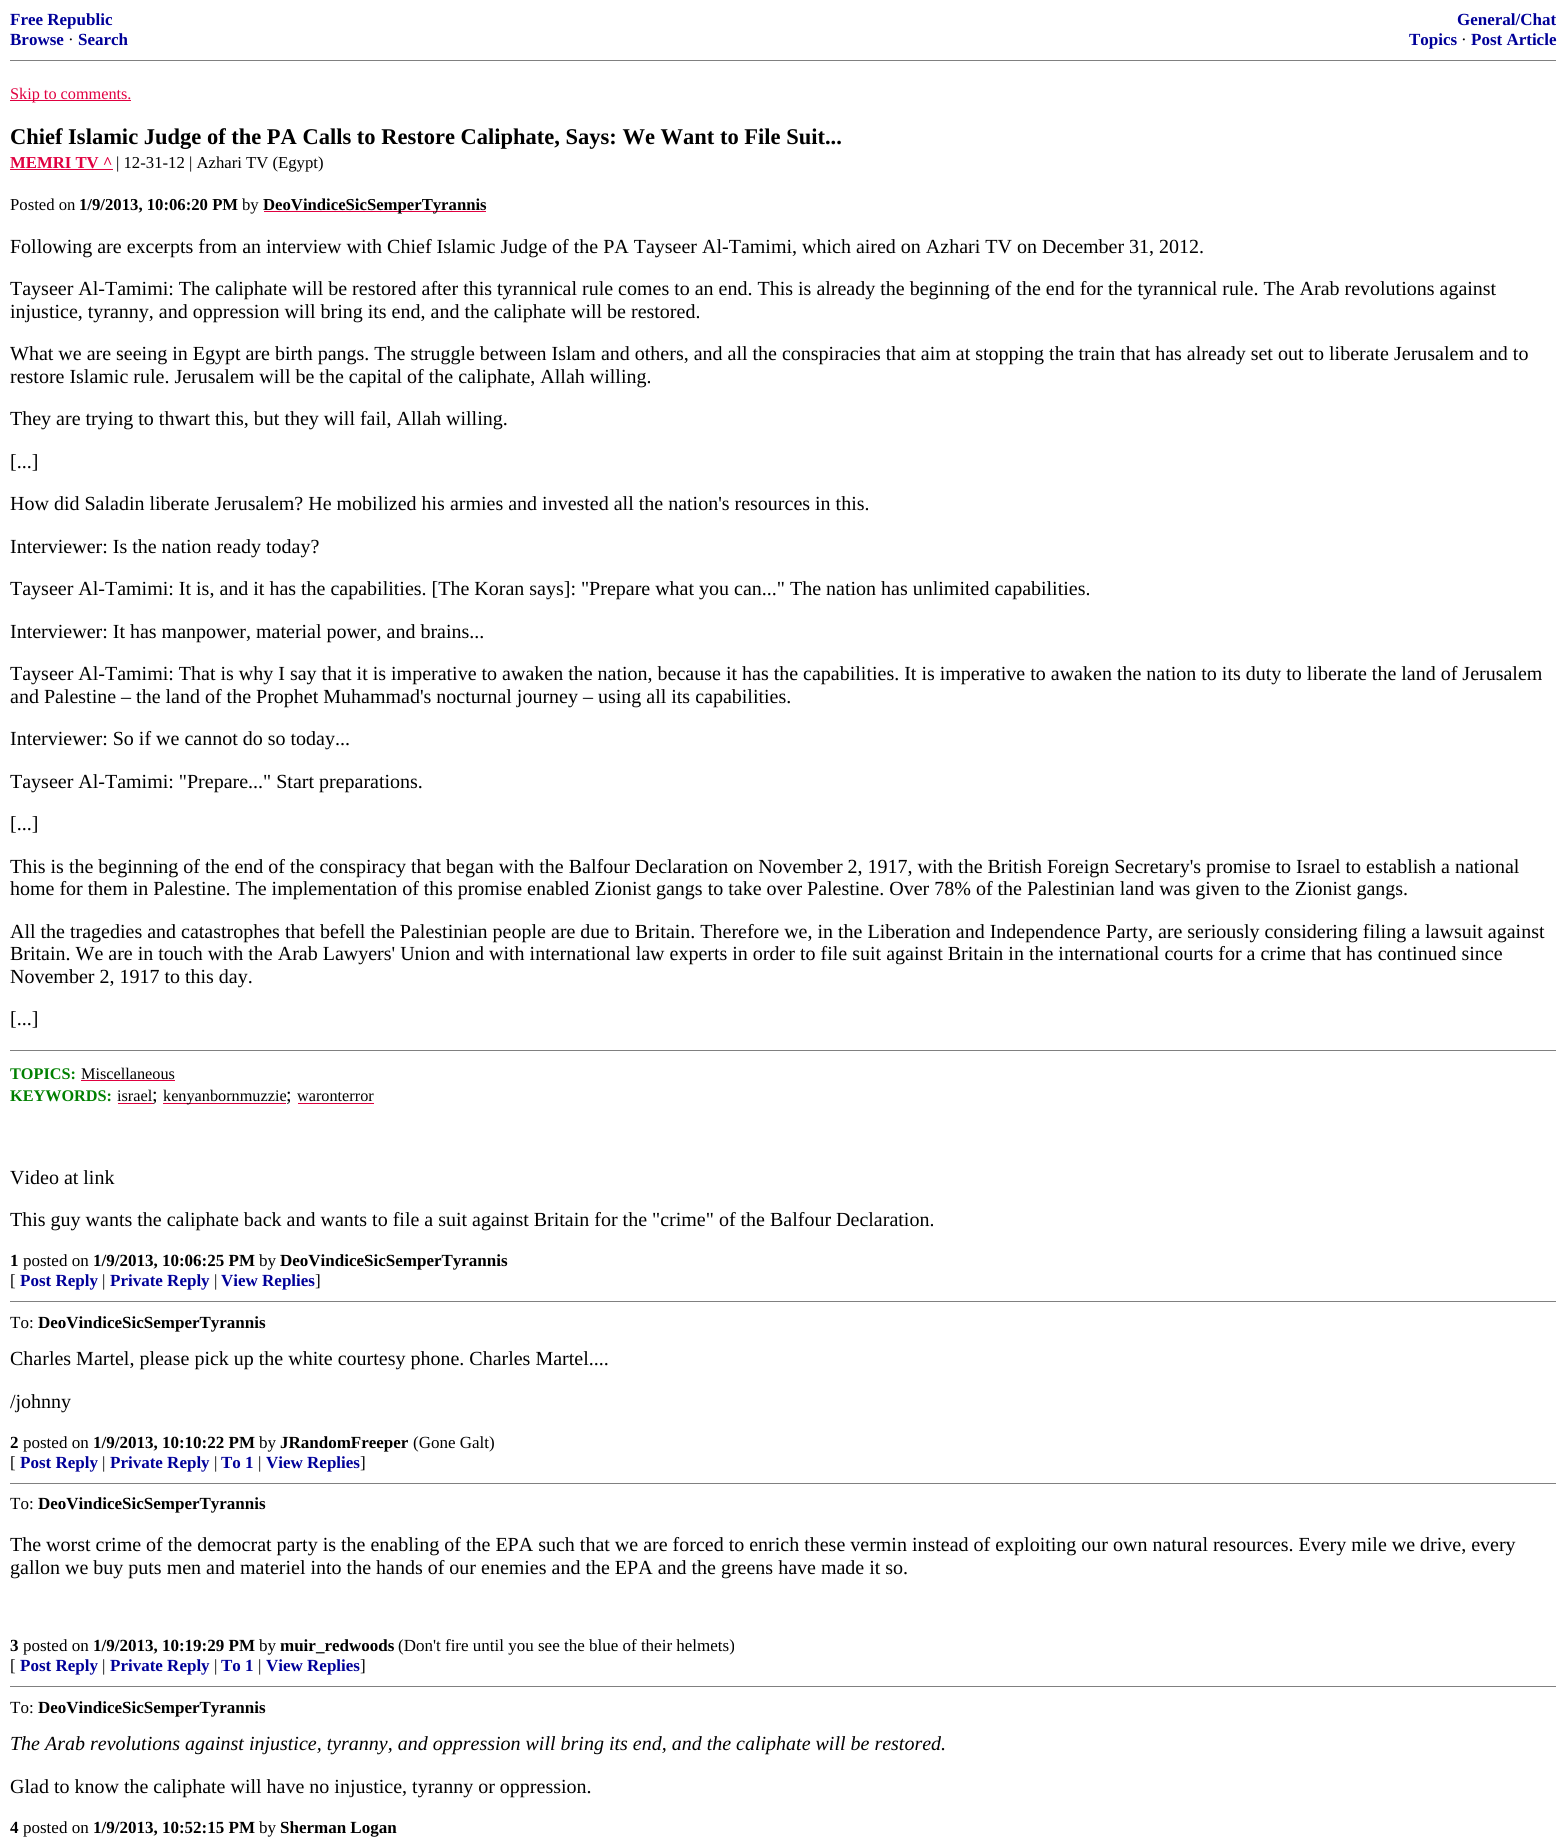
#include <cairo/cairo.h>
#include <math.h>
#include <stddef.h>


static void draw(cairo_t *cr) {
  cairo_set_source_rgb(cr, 1, 1, 1);
  cairo_paint(cr);
  cairo_set_source_rgb(cr, 128 / 255.0, 128 / 255.0, 128 / 255.0);
  cairo_rectangle(cr, 10, 60, 1546, 1);
  cairo_fill(cr);
  cairo_set_source_rgb(cr, 224 / 255.0, 0, 64 / 255.0);
  cairo_rectangle(cr, 10, 100, 121, 1);
  cairo_fill(cr);
  cairo_rectangle(cr, 10, 169, 103, 1);
  cairo_fill(cr);
  cairo_rectangle(cr, 264, 211, 222, 1);
  cairo_fill(cr);
  cairo_set_source_rgb(cr, 128 / 255.0, 128 / 255.0, 128 / 255.0);
  cairo_rectangle(cr, 10, 1050, 1546, 1);
  cairo_fill(cr);
  cairo_set_source_rgb(cr, 224 / 255.0, 0, 64 / 255.0);
  cairo_rectangle(cr, 81, 1080, 94, 1);
  cairo_fill(cr);
  cairo_rectangle(cr, 118, 1103, 35, 1);
  cairo_fill(cr);
  cairo_rectangle(cr, 163, 1103, 123, 1);
  cairo_fill(cr);
  cairo_rectangle(cr, 298, 1103, 76, 1);
  cairo_fill(cr);
  cairo_set_source_rgb(cr, 128 / 255.0, 128 / 255.0, 128 / 255.0);
  cairo_rectangle(cr, 10, 1301, 1546, 1);
  cairo_fill(cr);
  cairo_rectangle(cr, 10, 1483, 1546, 1);
  cairo_fill(cr);
  cairo_rectangle(cr, 10, 1686, 1546, 1);
  cairo_fill(cr);
  cairo_select_font_face(cr, "Liberation Serif", CAIRO_FONT_SLANT_NORMAL, CAIRO_FONT_WEIGHT_BOLD);
  cairo_set_font_size(cr, 17);
  cairo_set_source_rgb(cr, 0, 0, 153 / 255.0);
  cairo_move_to(cr, 10, 25);
  cairo_show_text(cr, "Free Republic");
  cairo_move_to(cr, 10, 45);
  cairo_show_text(cr, "Browse");
  cairo_select_font_face(cr, "Liberation Serif", CAIRO_FONT_SLANT_NORMAL, CAIRO_FONT_WEIGHT_NORMAL);
  cairo_set_source_rgb(cr, 0, 0, 0);
  cairo_move_to(cr, 68, 45);
  cairo_show_text(cr, "·");
  cairo_select_font_face(cr, "Liberation Serif", CAIRO_FONT_SLANT_NORMAL, CAIRO_FONT_WEIGHT_BOLD);
  cairo_set_source_rgb(cr, 0, 0, 153 / 255.0);
  cairo_move_to(cr, 78, 45);
  cairo_show_text(cr, "Search");
  cairo_move_to(cr, 1457, 25);
  cairo_show_text(cr, "General/Chat");
  cairo_move_to(cr, 1409, 45);
  cairo_show_text(cr, "Topics");
  cairo_select_font_face(cr, "Liberation Serif", CAIRO_FONT_SLANT_NORMAL, CAIRO_FONT_WEIGHT_NORMAL);
  cairo_set_source_rgb(cr, 0, 0, 0);
  cairo_move_to(cr, 1461, 45);
  cairo_show_text(cr, "·");
  cairo_select_font_face(cr, "Liberation Serif", CAIRO_FONT_SLANT_NORMAL, CAIRO_FONT_WEIGHT_BOLD);
  cairo_set_source_rgb(cr, 0, 0, 153 / 255.0);
  cairo_move_to(cr, 1471, 45);
  cairo_show_text(cr, "Post Article");
  cairo_select_font_face(cr, "Liberation Serif", CAIRO_FONT_SLANT_NORMAL, CAIRO_FONT_WEIGHT_NORMAL);
  cairo_set_font_size(cr, 16.25);
  cairo_set_source_rgb(cr, 224 / 255.0, 0, 64 / 255.0);
  cairo_move_to(cr, 10, 99);
  cairo_show_text(cr, "Skip to comments.");
  cairo_select_font_face(cr, "Liberation Serif", CAIRO_FONT_SLANT_NORMAL, CAIRO_FONT_WEIGHT_BOLD);
  cairo_set_font_size(cr, 22.5);
  cairo_set_source_rgb(cr, 0, 0, 0);
  cairo_move_to(cr, 10, 144);
  cairo_show_text(cr, "Chief Islamic Judge of the PA Calls to Restore Caliphate, Says: We Want to File Suit...");
  cairo_set_font_size(cr, 16.7);
  cairo_set_source_rgb(cr, 224 / 255.0, 0, 64 / 255.0);
  cairo_move_to(cr, 10, 168);
  cairo_show_text(cr, "MEMRI TV ^");
  cairo_select_font_face(cr, "Liberation Serif", CAIRO_FONT_SLANT_NORMAL, CAIRO_FONT_WEIGHT_NORMAL);
  cairo_set_source_rgb(cr, 0, 0, 0);
  cairo_move_to(cr, 116, 168);
  cairo_show_text(cr, "| 12-31-12 | Azhari TV (Egypt)");
  cairo_move_to(cr, 10, 210);
  cairo_show_text(cr, "Posted on");
  cairo_select_font_face(cr, "Liberation Serif", CAIRO_FONT_SLANT_NORMAL, CAIRO_FONT_WEIGHT_BOLD);
  cairo_move_to(cr, 79, 210);
  cairo_show_text(cr, "1/9/2013, 10:06:20 PM");
  cairo_select_font_face(cr, "Liberation Serif", CAIRO_FONT_SLANT_NORMAL, CAIRO_FONT_WEIGHT_NORMAL);
  cairo_move_to(cr, 242, 210);
  cairo_show_text(cr, "by");
  cairo_select_font_face(cr, "Liberation Serif", CAIRO_FONT_SLANT_NORMAL, CAIRO_FONT_WEIGHT_BOLD);
  cairo_move_to(cr, 263, 210);
  cairo_show_text(cr, "DeoVindiceSicSemperTyrannis");
  cairo_select_font_face(cr, "Liberation Serif", CAIRO_FONT_SLANT_NORMAL, CAIRO_FONT_WEIGHT_NORMAL);
  cairo_set_font_size(cr, 20);
  cairo_move_to(cr, 10, 253);
  cairo_show_text(cr, "Following are excerpts from an interview with Chief Islamic Judge of the PA Tayseer Al-Tamimi, which aired on Azhari TV on December 31, 2012.");
  cairo_move_to(cr, 10, 295);
  cairo_show_text(cr, "Tayseer Al-Tamimi: The caliphate will be restored after this tyrannical rule comes to an end. This is already the beginning of the end for the tyrannical rule. The Arab revolutions against");
  cairo_move_to(cr, 10, 318);
  cairo_show_text(cr, "injustice, tyranny, and oppression will bring its end, and the caliphate will be restored.");
  cairo_move_to(cr, 10, 360);
  cairo_show_text(cr, "What we are seeing in Egypt are birth pangs. The struggle between Islam and others, and all the conspiracies that aim at stopping the train that has already set out to liberate Jerusalem and to");
  cairo_move_to(cr, 10, 383);
  cairo_show_text(cr, "restore Islamic rule. Jerusalem will be the capital of the caliphate, Allah willing.");
  cairo_move_to(cr, 10, 425);
  cairo_show_text(cr, "They are trying to thwart this, but they will fail, Allah willing.");
  cairo_move_to(cr, 10, 468);
  cairo_show_text(cr, "[...]");
  cairo_move_to(cr, 10, 510);
  cairo_show_text(cr, "How did Saladin liberate Jerusalem? He mobilized his armies and invested all the nation's resources in this.");
  cairo_move_to(cr, 10, 553);
  cairo_show_text(cr, "Interviewer: Is the nation ready today?");
  cairo_move_to(cr, 10, 595);
  cairo_show_text(cr, "Tayseer Al-Tamimi: It is, and it has the capabilities. [The Koran says]: \"Prepare what you can...\" The nation has unlimited capabilities.");
  cairo_move_to(cr, 10, 638);
  cairo_show_text(cr, "Interviewer: It has manpower, material power, and brains...");
  cairo_move_to(cr, 10, 680);
  cairo_show_text(cr, "Tayseer Al-Tamimi: That is why I say that it is imperative to awaken the nation, because it has the capabilities. It is imperative to awaken the nation to its duty to liberate the land of Jerusalem");
  cairo_move_to(cr, 10, 703);
  cairo_show_text(cr, "and Palestine – the land of the Prophet Muhammad's nocturnal journey – using all its capabilities.");
  cairo_move_to(cr, 10, 745);
  cairo_show_text(cr, "Interviewer: So if we cannot do so today...");
  cairo_move_to(cr, 10, 788);
  cairo_show_text(cr, "Tayseer Al-Tamimi: \"Prepare...\" Start preparations.");
  cairo_move_to(cr, 10, 830);
  cairo_show_text(cr, "[...]");
  cairo_move_to(cr, 10, 873);
  cairo_show_text(cr, "This is the beginning of the end of the conspiracy that began with the Balfour Declaration on November 2, 1917, with the British Foreign Secretary's promise to Israel to establish a national");
  cairo_move_to(cr, 10, 895);
  cairo_show_text(cr, "home for them in Palestine. The implementation of this promise enabled Zionist gangs to take over Palestine. Over 78% of the Palestinian land was given to the Zionist gangs.");
  cairo_move_to(cr, 10, 938);
  cairo_show_text(cr, "All the tragedies and catastrophes that befell the Palestinian people are due to Britain. Therefore we, in the Liberation and Independence Party, are seriously considering filing a lawsuit against");
  cairo_move_to(cr, 10, 960);
  cairo_show_text(cr, "Britain. We are in touch with the Arab Lawyers' Union and with international law experts in order to file suit against Britain in the international courts for a crime that has continued since");
  cairo_move_to(cr, 10, 983);
  cairo_show_text(cr, "November 2, 1917 to this day.");
  cairo_move_to(cr, 10, 1025);
  cairo_show_text(cr, "[...]");
  cairo_select_font_face(cr, "Liberation Serif", CAIRO_FONT_SLANT_NORMAL, CAIRO_FONT_WEIGHT_BOLD);
  cairo_set_font_size(cr, 16.25);
  cairo_set_source_rgb(cr, 0, 128 / 255.0, 0);
  cairo_move_to(cr, 10, 1079);
  cairo_show_text(cr, "TOPICS:");
  cairo_select_font_face(cr, "Liberation Serif", CAIRO_FONT_SLANT_NORMAL, CAIRO_FONT_WEIGHT_NORMAL);
  cairo_set_source_rgb(cr, 0, 0, 0);
  cairo_move_to(cr, 81, 1079);
  cairo_show_text(cr, "Miscellaneous");
  cairo_select_font_face(cr, "Liberation Serif", CAIRO_FONT_SLANT_NORMAL, CAIRO_FONT_WEIGHT_BOLD);
  cairo_set_source_rgb(cr, 0, 128 / 255.0, 0);
  cairo_move_to(cr, 10, 1101);
  cairo_show_text(cr, "KEYWORDS:");
  cairo_select_font_face(cr, "Liberation Serif", CAIRO_FONT_SLANT_NORMAL, CAIRO_FONT_WEIGHT_NORMAL);
  cairo_set_source_rgb(cr, 0, 0, 0);
  cairo_move_to(cr, 117, 1101);
  cairo_show_text(cr, "israel");
  cairo_set_font_size(cr, 20);
  cairo_move_to(cr, 152, 1101);
  cairo_show_text(cr, ";");
  cairo_set_font_size(cr, 16.25);
  cairo_move_to(cr, 163, 1101);
  cairo_show_text(cr, "kenyanbornmuzzie");
  cairo_set_font_size(cr, 20);
  cairo_move_to(cr, 286, 1101);
  cairo_show_text(cr, ";");
  cairo_set_font_size(cr, 16.25);
  cairo_move_to(cr, 297, 1101);
  cairo_show_text(cr, "waronterror");
  cairo_set_font_size(cr, 20);
  cairo_move_to(cr, 10, 1184);
  cairo_show_text(cr, "Video at link");
  cairo_move_to(cr, 10, 1226);
  cairo_show_text(cr, "This guy wants the caliphate back and wants to file a suit against Britain for the \"crime\" of the Balfour Declaration.");
  cairo_select_font_face(cr, "Liberation Serif", CAIRO_FONT_SLANT_NORMAL, CAIRO_FONT_WEIGHT_BOLD);
  cairo_set_font_size(cr, 17);
  cairo_move_to(cr, 10, 1266);
  cairo_show_text(cr, "1");
  cairo_select_font_face(cr, "Liberation Serif", CAIRO_FONT_SLANT_NORMAL, CAIRO_FONT_WEIGHT_NORMAL);
  cairo_move_to(cr, 23, 1266);
  cairo_show_text(cr, "posted on");
  cairo_select_font_face(cr, "Liberation Serif", CAIRO_FONT_SLANT_NORMAL, CAIRO_FONT_WEIGHT_BOLD);
  cairo_move_to(cr, 93, 1266);
  cairo_show_text(cr, "1/9/2013, 10:06:25 PM");
  cairo_select_font_face(cr, "Liberation Serif", CAIRO_FONT_SLANT_NORMAL, CAIRO_FONT_WEIGHT_NORMAL);
  cairo_move_to(cr, 259, 1266);
  cairo_show_text(cr, "by");
  cairo_select_font_face(cr, "Liberation Serif", CAIRO_FONT_SLANT_NORMAL, CAIRO_FONT_WEIGHT_BOLD);
  cairo_move_to(cr, 280, 1266);
  cairo_show_text(cr, "DeoVindiceSicSemperTyrannis");
  cairo_select_font_face(cr, "Liberation Serif", CAIRO_FONT_SLANT_NORMAL, CAIRO_FONT_WEIGHT_NORMAL);
  cairo_move_to(cr, 10, 1286);
  cairo_show_text(cr, "[");
  cairo_select_font_face(cr, "Liberation Serif", CAIRO_FONT_SLANT_NORMAL, CAIRO_FONT_WEIGHT_BOLD);
  cairo_set_source_rgb(cr, 0, 0, 153 / 255.0);
  cairo_move_to(cr, 20, 1286);
  cairo_show_text(cr, "Post Reply");
  cairo_select_font_face(cr, "Liberation Serif", CAIRO_FONT_SLANT_NORMAL, CAIRO_FONT_WEIGHT_NORMAL);
  cairo_set_source_rgb(cr, 0, 0, 0);
  cairo_move_to(cr, 102, 1286);
  cairo_show_text(cr, "|");
  cairo_select_font_face(cr, "Liberation Serif", CAIRO_FONT_SLANT_NORMAL, CAIRO_FONT_WEIGHT_BOLD);
  cairo_set_source_rgb(cr, 0, 0, 153 / 255.0);
  cairo_move_to(cr, 110, 1286);
  cairo_show_text(cr, "Private Reply");
  cairo_select_font_face(cr, "Liberation Serif", CAIRO_FONT_SLANT_NORMAL, CAIRO_FONT_WEIGHT_NORMAL);
  cairo_set_source_rgb(cr, 0, 0, 0);
  cairo_move_to(cr, 214, 1286);
  cairo_show_text(cr, "|");
  cairo_select_font_face(cr, "Liberation Serif", CAIRO_FONT_SLANT_NORMAL, CAIRO_FONT_WEIGHT_BOLD);
  cairo_set_source_rgb(cr, 0, 0, 153 / 255.0);
  cairo_move_to(cr, 221, 1286);
  cairo_show_text(cr, "View Replies");
  cairo_select_font_face(cr, "Liberation Serif", CAIRO_FONT_SLANT_NORMAL, CAIRO_FONT_WEIGHT_NORMAL);
  cairo_set_source_rgb(cr, 0, 0, 0);
  cairo_move_to(cr, 315, 1286);
  cairo_show_text(cr, "]");
  cairo_move_to(cr, 10, 1328);
  cairo_show_text(cr, "To:");
  cairo_select_font_face(cr, "Liberation Serif", CAIRO_FONT_SLANT_NORMAL, CAIRO_FONT_WEIGHT_BOLD);
  cairo_move_to(cr, 38, 1328);
  cairo_show_text(cr, "DeoVindiceSicSemperTyrannis");
  cairo_select_font_face(cr, "Liberation Serif", CAIRO_FONT_SLANT_NORMAL, CAIRO_FONT_WEIGHT_NORMAL);
  cairo_set_font_size(cr, 20);
  cairo_move_to(cr, 10, 1365);
  cairo_show_text(cr, "Charles Martel, please pick up the white courtesy phone. Charles Martel....");
  cairo_move_to(cr, 10, 1408);
  cairo_show_text(cr, "/johnny");
  cairo_select_font_face(cr, "Liberation Serif", CAIRO_FONT_SLANT_NORMAL, CAIRO_FONT_WEIGHT_BOLD);
  cairo_set_font_size(cr, 17);
  cairo_move_to(cr, 10, 1448);
  cairo_show_text(cr, "2");
  cairo_select_font_face(cr, "Liberation Serif", CAIRO_FONT_SLANT_NORMAL, CAIRO_FONT_WEIGHT_NORMAL);
  cairo_move_to(cr, 23, 1448);
  cairo_show_text(cr, "posted on");
  cairo_select_font_face(cr, "Liberation Serif", CAIRO_FONT_SLANT_NORMAL, CAIRO_FONT_WEIGHT_BOLD);
  cairo_move_to(cr, 93, 1448);
  cairo_show_text(cr, "1/9/2013, 10:10:22 PM");
  cairo_select_font_face(cr, "Liberation Serif", CAIRO_FONT_SLANT_NORMAL, CAIRO_FONT_WEIGHT_NORMAL);
  cairo_move_to(cr, 259, 1448);
  cairo_show_text(cr, "by");
  cairo_select_font_face(cr, "Liberation Serif", CAIRO_FONT_SLANT_NORMAL, CAIRO_FONT_WEIGHT_BOLD);
  cairo_move_to(cr, 280, 1448);
  cairo_show_text(cr, "JRandomFreeper");
  cairo_select_font_face(cr, "Liberation Serif", CAIRO_FONT_SLANT_NORMAL, CAIRO_FONT_WEIGHT_NORMAL);
  cairo_move_to(cr, 413, 1448);
  cairo_show_text(cr, "(Gone Galt)");
  cairo_move_to(cr, 10, 1468);
  cairo_show_text(cr, "[");
  cairo_select_font_face(cr, "Liberation Serif", CAIRO_FONT_SLANT_NORMAL, CAIRO_FONT_WEIGHT_BOLD);
  cairo_set_source_rgb(cr, 0, 0, 153 / 255.0);
  cairo_move_to(cr, 20, 1468);
  cairo_show_text(cr, "Post Reply");
  cairo_select_font_face(cr, "Liberation Serif", CAIRO_FONT_SLANT_NORMAL, CAIRO_FONT_WEIGHT_NORMAL);
  cairo_set_source_rgb(cr, 0, 0, 0);
  cairo_move_to(cr, 102, 1468);
  cairo_show_text(cr, "|");
  cairo_select_font_face(cr, "Liberation Serif", CAIRO_FONT_SLANT_NORMAL, CAIRO_FONT_WEIGHT_BOLD);
  cairo_set_source_rgb(cr, 0, 0, 153 / 255.0);
  cairo_move_to(cr, 110, 1468);
  cairo_show_text(cr, "Private Reply");
  cairo_select_font_face(cr, "Liberation Serif", CAIRO_FONT_SLANT_NORMAL, CAIRO_FONT_WEIGHT_NORMAL);
  cairo_set_source_rgb(cr, 0, 0, 0);
  cairo_move_to(cr, 214, 1468);
  cairo_show_text(cr, "|");
  cairo_select_font_face(cr, "Liberation Serif", CAIRO_FONT_SLANT_NORMAL, CAIRO_FONT_WEIGHT_BOLD);
  cairo_set_source_rgb(cr, 0, 0, 153 / 255.0);
  cairo_move_to(cr, 221, 1468);
  cairo_show_text(cr, "To 1");
  cairo_select_font_face(cr, "Liberation Serif", CAIRO_FONT_SLANT_NORMAL, CAIRO_FONT_WEIGHT_NORMAL);
  cairo_set_source_rgb(cr, 0, 0, 0);
  cairo_move_to(cr, 258, 1468);
  cairo_show_text(cr, "|");
  cairo_select_font_face(cr, "Liberation Serif", CAIRO_FONT_SLANT_NORMAL, CAIRO_FONT_WEIGHT_BOLD);
  cairo_set_source_rgb(cr, 0, 0, 153 / 255.0);
  cairo_move_to(cr, 266, 1468);
  cairo_show_text(cr, "View Replies");
  cairo_select_font_face(cr, "Liberation Serif", CAIRO_FONT_SLANT_NORMAL, CAIRO_FONT_WEIGHT_NORMAL);
  cairo_set_source_rgb(cr, 0, 0, 0);
  cairo_move_to(cr, 360, 1468);
  cairo_show_text(cr, "]");
  cairo_move_to(cr, 10, 1509);
  cairo_show_text(cr, "To:");
  cairo_select_font_face(cr, "Liberation Serif", CAIRO_FONT_SLANT_NORMAL, CAIRO_FONT_WEIGHT_BOLD);
  cairo_move_to(cr, 38, 1509);
  cairo_show_text(cr, "DeoVindiceSicSemperTyrannis");
  cairo_select_font_face(cr, "Liberation Serif", CAIRO_FONT_SLANT_NORMAL, CAIRO_FONT_WEIGHT_NORMAL);
  cairo_set_font_size(cr, 20);
  cairo_move_to(cr, 10, 1551);
  cairo_show_text(cr, "The worst crime of the democrat party is the enabling of the EPA such that we are forced to enrich these vermin instead of exploiting our own natural resources. Every mile we drive, every");
  cairo_move_to(cr, 10, 1574);
  cairo_show_text(cr, "gallon we buy puts men and materiel into the hands of our enemies and the EPA and the greens have made it so.");
  cairo_select_font_face(cr, "Liberation Serif", CAIRO_FONT_SLANT_NORMAL, CAIRO_FONT_WEIGHT_BOLD);
  cairo_set_font_size(cr, 17);
  cairo_move_to(cr, 10, 1651);
  cairo_show_text(cr, "3");
  cairo_select_font_face(cr, "Liberation Serif", CAIRO_FONT_SLANT_NORMAL, CAIRO_FONT_WEIGHT_NORMAL);
  cairo_move_to(cr, 23, 1651);
  cairo_show_text(cr, "posted on");
  cairo_select_font_face(cr, "Liberation Serif", CAIRO_FONT_SLANT_NORMAL, CAIRO_FONT_WEIGHT_BOLD);
  cairo_move_to(cr, 93, 1651);
  cairo_show_text(cr, "1/9/2013, 10:19:29 PM");
  cairo_select_font_face(cr, "Liberation Serif", CAIRO_FONT_SLANT_NORMAL, CAIRO_FONT_WEIGHT_NORMAL);
  cairo_move_to(cr, 259, 1651);
  cairo_show_text(cr, "by");
  cairo_select_font_face(cr, "Liberation Serif", CAIRO_FONT_SLANT_NORMAL, CAIRO_FONT_WEIGHT_BOLD);
  cairo_move_to(cr, 280, 1651);
  cairo_show_text(cr, "muir_redwoods");
  cairo_select_font_face(cr, "Liberation Serif", CAIRO_FONT_SLANT_NORMAL, CAIRO_FONT_WEIGHT_NORMAL);
  cairo_move_to(cr, 398, 1651);
  cairo_show_text(cr, "(Don't fire until you see the blue of their helmets)");
  cairo_move_to(cr, 10, 1671);
  cairo_show_text(cr, "[");
  cairo_select_font_face(cr, "Liberation Serif", CAIRO_FONT_SLANT_NORMAL, CAIRO_FONT_WEIGHT_BOLD);
  cairo_set_source_rgb(cr, 0, 0, 153 / 255.0);
  cairo_move_to(cr, 20, 1671);
  cairo_show_text(cr, "Post Reply");
  cairo_select_font_face(cr, "Liberation Serif", CAIRO_FONT_SLANT_NORMAL, CAIRO_FONT_WEIGHT_NORMAL);
  cairo_set_source_rgb(cr, 0, 0, 0);
  cairo_move_to(cr, 102, 1671);
  cairo_show_text(cr, "|");
  cairo_select_font_face(cr, "Liberation Serif", CAIRO_FONT_SLANT_NORMAL, CAIRO_FONT_WEIGHT_BOLD);
  cairo_set_source_rgb(cr, 0, 0, 153 / 255.0);
  cairo_move_to(cr, 110, 1671);
  cairo_show_text(cr, "Private Reply");
  cairo_select_font_face(cr, "Liberation Serif", CAIRO_FONT_SLANT_NORMAL, CAIRO_FONT_WEIGHT_NORMAL);
  cairo_set_source_rgb(cr, 0, 0, 0);
  cairo_move_to(cr, 214, 1671);
  cairo_show_text(cr, "|");
  cairo_select_font_face(cr, "Liberation Serif", CAIRO_FONT_SLANT_NORMAL, CAIRO_FONT_WEIGHT_BOLD);
  cairo_set_source_rgb(cr, 0, 0, 153 / 255.0);
  cairo_move_to(cr, 221, 1671);
  cairo_show_text(cr, "To 1");
  cairo_select_font_face(cr, "Liberation Serif", CAIRO_FONT_SLANT_NORMAL, CAIRO_FONT_WEIGHT_NORMAL);
  cairo_set_source_rgb(cr, 0, 0, 0);
  cairo_move_to(cr, 258, 1671);
  cairo_show_text(cr, "|");
  cairo_select_font_face(cr, "Liberation Serif", CAIRO_FONT_SLANT_NORMAL, CAIRO_FONT_WEIGHT_BOLD);
  cairo_set_source_rgb(cr, 0, 0, 153 / 255.0);
  cairo_move_to(cr, 266, 1671);
  cairo_show_text(cr, "View Replies");
  cairo_select_font_face(cr, "Liberation Serif", CAIRO_FONT_SLANT_NORMAL, CAIRO_FONT_WEIGHT_NORMAL);
  cairo_set_source_rgb(cr, 0, 0, 0);
  cairo_move_to(cr, 360, 1671);
  cairo_show_text(cr, "]");
  cairo_move_to(cr, 10, 1713);
  cairo_show_text(cr, "To:");
  cairo_select_font_face(cr, "Liberation Serif", CAIRO_FONT_SLANT_NORMAL, CAIRO_FONT_WEIGHT_BOLD);
  cairo_move_to(cr, 38, 1713);
  cairo_show_text(cr, "DeoVindiceSicSemperTyrannis");
  cairo_select_font_face(cr, "Liberation Serif", CAIRO_FONT_SLANT_ITALIC, CAIRO_FONT_WEIGHT_NORMAL);
  cairo_set_font_size(cr, 20);
  cairo_move_to(cr, 10, 1750);
  cairo_show_text(cr, "The Arab revolutions against injustice, tyranny, and oppression will bring its end, and the caliphate will be restored.");
  cairo_select_font_face(cr, "Liberation Serif", CAIRO_FONT_SLANT_NORMAL, CAIRO_FONT_WEIGHT_NORMAL);
  cairo_move_to(cr, 10, 1793);
  cairo_show_text(cr, "Glad to know the caliphate will have no injustice, tyranny or oppression.");
  cairo_select_font_face(cr, "Liberation Serif", CAIRO_FONT_SLANT_NORMAL, CAIRO_FONT_WEIGHT_BOLD);
  cairo_set_font_size(cr, 17);
  cairo_move_to(cr, 10, 1833);
  cairo_show_text(cr, "4");
  cairo_select_font_face(cr, "Liberation Serif", CAIRO_FONT_SLANT_NORMAL, CAIRO_FONT_WEIGHT_NORMAL);
  cairo_move_to(cr, 23, 1833);
  cairo_show_text(cr, "posted on");
  cairo_select_font_face(cr, "Liberation Serif", CAIRO_FONT_SLANT_NORMAL, CAIRO_FONT_WEIGHT_BOLD);
  cairo_move_to(cr, 93, 1833);
  cairo_show_text(cr, "1/9/2013, 10:52:15 PM");
  cairo_select_font_face(cr, "Liberation Serif", CAIRO_FONT_SLANT_NORMAL, CAIRO_FONT_WEIGHT_NORMAL);
  cairo_move_to(cr, 259, 1833);
  cairo_show_text(cr, "by");
  cairo_select_font_face(cr, "Liberation Serif", CAIRO_FONT_SLANT_NORMAL, CAIRO_FONT_WEIGHT_BOLD);
  cairo_move_to(cr, 280, 1833);
  cairo_show_text(cr, "Sherman Logan");
}

int main(void) {
  cairo_surface_t *surface = cairo_image_surface_create(CAIRO_FORMAT_RGB24, 1566, 1837);
  cairo_t *cr = cairo_create(surface);
  cairo_font_options_t *options = cairo_font_options_create();
  cairo_font_options_set_hint_metrics(options, CAIRO_HINT_METRICS_OFF);
  cairo_font_options_set_hint_style(options, CAIRO_HINT_STYLE_NONE);
  cairo_set_font_options(cr, options);
  cairo_set_miter_limit(cr, 4);
  draw(cr);
  cairo_surface_write_to_png(surface, "out.png");
  cairo_font_options_destroy(options);
  cairo_destroy(cr);
  cairo_surface_destroy(surface);
  return 0;
}
